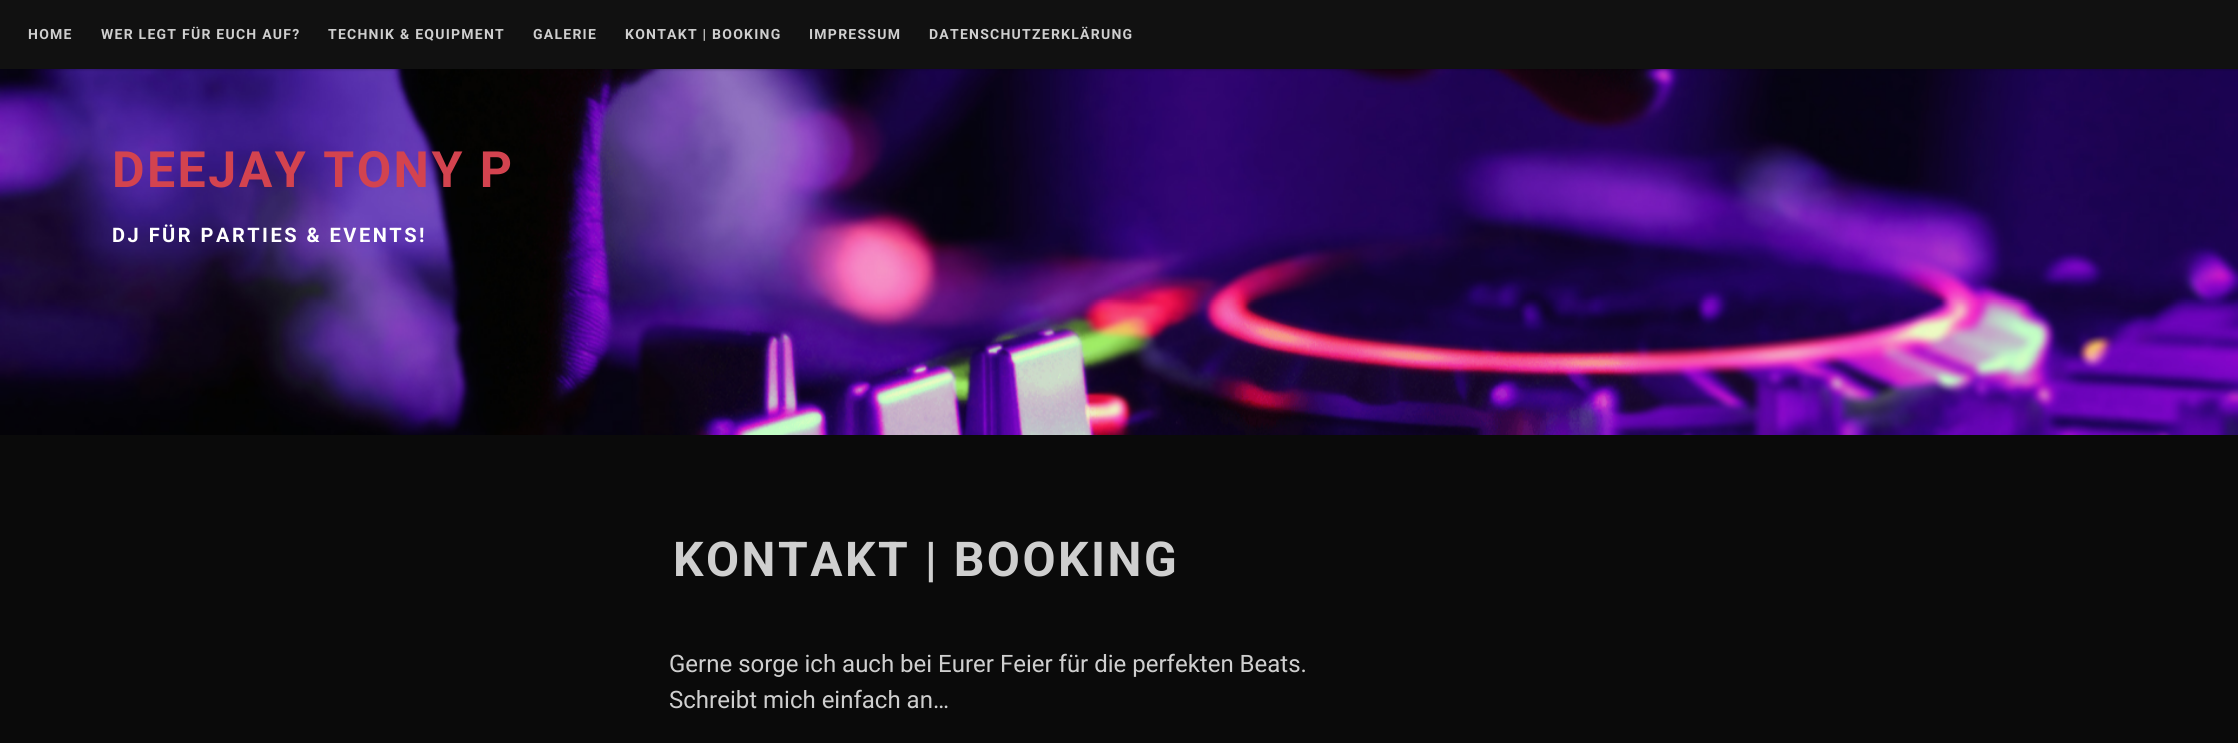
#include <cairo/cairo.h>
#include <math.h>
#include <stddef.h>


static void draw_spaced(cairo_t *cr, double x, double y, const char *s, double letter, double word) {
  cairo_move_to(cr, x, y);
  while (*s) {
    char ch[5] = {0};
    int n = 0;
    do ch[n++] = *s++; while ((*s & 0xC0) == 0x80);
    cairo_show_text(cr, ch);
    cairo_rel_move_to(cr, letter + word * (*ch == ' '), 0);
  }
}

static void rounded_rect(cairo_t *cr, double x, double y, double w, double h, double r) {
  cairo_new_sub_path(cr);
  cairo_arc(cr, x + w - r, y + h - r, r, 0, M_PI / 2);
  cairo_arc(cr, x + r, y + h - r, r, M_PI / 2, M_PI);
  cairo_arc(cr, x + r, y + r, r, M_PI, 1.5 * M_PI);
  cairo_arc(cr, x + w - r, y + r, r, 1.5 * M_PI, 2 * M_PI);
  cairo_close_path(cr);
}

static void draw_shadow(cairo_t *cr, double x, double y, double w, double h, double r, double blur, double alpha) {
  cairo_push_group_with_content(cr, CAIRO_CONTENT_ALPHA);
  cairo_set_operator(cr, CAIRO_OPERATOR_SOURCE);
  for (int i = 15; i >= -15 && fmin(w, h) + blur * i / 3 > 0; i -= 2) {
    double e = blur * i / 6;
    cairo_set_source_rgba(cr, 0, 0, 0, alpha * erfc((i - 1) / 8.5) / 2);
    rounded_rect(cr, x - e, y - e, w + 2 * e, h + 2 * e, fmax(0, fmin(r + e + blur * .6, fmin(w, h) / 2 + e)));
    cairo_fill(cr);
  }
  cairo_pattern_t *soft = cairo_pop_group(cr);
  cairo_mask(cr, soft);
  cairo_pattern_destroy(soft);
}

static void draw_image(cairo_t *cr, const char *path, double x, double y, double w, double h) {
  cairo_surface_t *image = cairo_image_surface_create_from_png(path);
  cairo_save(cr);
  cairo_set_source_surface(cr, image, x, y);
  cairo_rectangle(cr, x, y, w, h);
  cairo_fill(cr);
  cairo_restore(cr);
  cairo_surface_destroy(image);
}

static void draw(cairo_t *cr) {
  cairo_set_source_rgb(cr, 10 / 255.0, 10 / 255.0, 10 / 255.0);
  cairo_paint(cr);
  draw_image(cr, "images/1.png", 0, 69, 2238, 366);
  cairo_set_source_rgb(cr, 0, 0, 0);
  draw_shadow(cr, 0, 1, 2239, 69, 0, 1, 0.2);
  cairo_set_source_rgb(cr, 17 / 255.0, 17 / 255.0, 17 / 255.0);
  cairo_rectangle(cr, 0, 0, 2238, 69);
  cairo_fill(cr);
  cairo_select_font_face(cr, "Roboto", CAIRO_FONT_SLANT_NORMAL, CAIRO_FONT_WEIGHT_BOLD);
  cairo_set_font_size(cr, 14);
  cairo_set_source_rgb(cr, 207 / 255.0, 207 / 255.0, 207 / 255.0);
  draw_spaced(cr, 28, 39, "HOME", 1.25, 0);
  draw_spaced(cr, 101, 39, "WER LEGT FÜR EUCH AUF?", 1.25, 0);
  draw_spaced(cr, 328, 39, "TECHNIK & EQUIPMENT", 1.25, 0);
  draw_spaced(cr, 533, 39, "GALERIE", 1.25, 0);
  draw_spaced(cr, 625, 39, "KONTAKT | BOOKING", 1.25, 0);
  draw_spaced(cr, 809, 39, "IMPRESSUM", 1.25, 0);
  draw_spaced(cr, 929, 39, "DATENSCHUTZERKLÄRUNG", 1.25, 0);
  cairo_set_font_size(cr, 50);
  cairo_set_source_rgb(cr, 211 / 255.0, 67 / 255.0, 79 / 255.0);
  draw_spaced(cr, 112, 187, "DEEJAY TONY P", 2.5, 0);
  cairo_set_font_size(cr, 20);
  cairo_set_source_rgb(cr, 1, 1, 1);
  draw_spaced(cr, 112, 242, "DJ FÜR PARTIES & EVENTS!", 2.5, 0);
  cairo_set_font_size(cr, 48);
  cairo_set_source_rgb(cr, 207 / 255.0, 207 / 255.0, 207 / 255.0);
  draw_spaced(cr, 673, 576, "KONTAKT | BOOKING", 2.5, 0);
  cairo_select_font_face(cr, "Roboto", CAIRO_FONT_SLANT_NORMAL, CAIRO_FONT_WEIGHT_NORMAL);
  cairo_set_font_size(cr, 24);
  cairo_move_to(cr, 669, 672);
  cairo_show_text(cr, "Gerne sorge ich auch bei Eurer Feier für die perfekten Beats.");
  cairo_move_to(cr, 669, 708);
  cairo_show_text(cr, "Schreibt mich einfach an…");
}

int main(void) {
  cairo_surface_t *surface = cairo_image_surface_create(CAIRO_FORMAT_RGB24, 2238, 743);
  cairo_t *cr = cairo_create(surface);
  cairo_font_options_t *options = cairo_font_options_create();
  cairo_font_options_set_hint_metrics(options, CAIRO_HINT_METRICS_OFF);
  cairo_font_options_set_hint_style(options, CAIRO_HINT_STYLE_NONE);
  cairo_set_font_options(cr, options);
  cairo_set_miter_limit(cr, 4);
  draw(cr);
  cairo_surface_write_to_png(surface, "out.png");
  cairo_font_options_destroy(options);
  cairo_destroy(cr);
  cairo_surface_destroy(surface);
  return 0;
}
